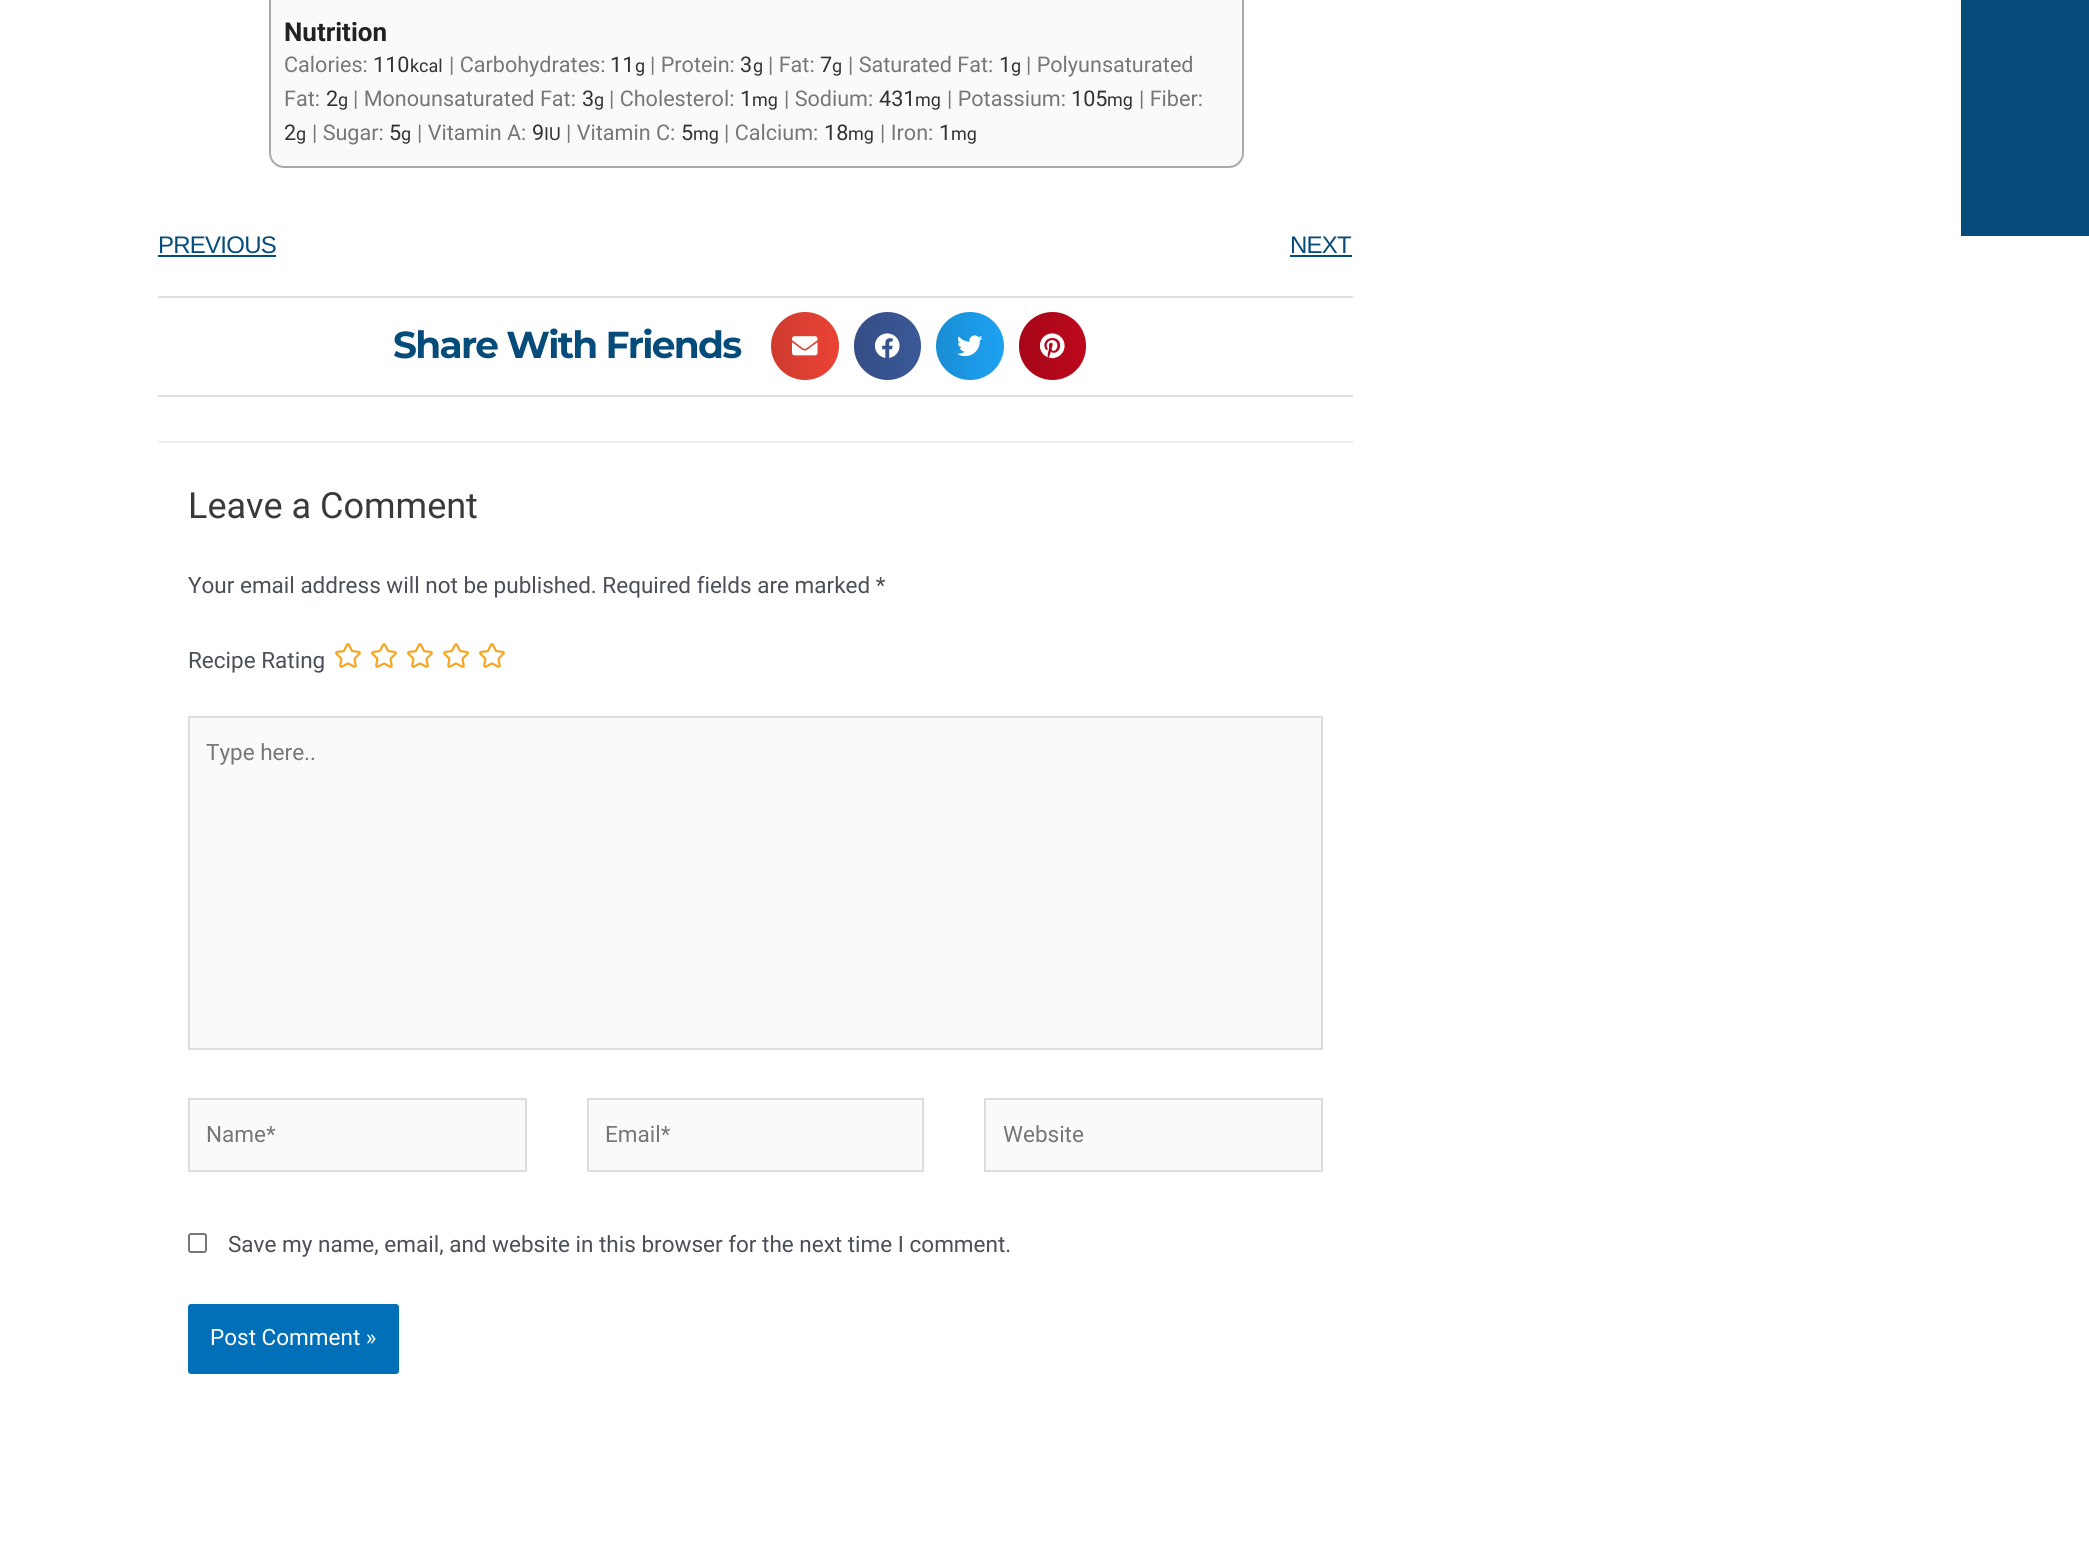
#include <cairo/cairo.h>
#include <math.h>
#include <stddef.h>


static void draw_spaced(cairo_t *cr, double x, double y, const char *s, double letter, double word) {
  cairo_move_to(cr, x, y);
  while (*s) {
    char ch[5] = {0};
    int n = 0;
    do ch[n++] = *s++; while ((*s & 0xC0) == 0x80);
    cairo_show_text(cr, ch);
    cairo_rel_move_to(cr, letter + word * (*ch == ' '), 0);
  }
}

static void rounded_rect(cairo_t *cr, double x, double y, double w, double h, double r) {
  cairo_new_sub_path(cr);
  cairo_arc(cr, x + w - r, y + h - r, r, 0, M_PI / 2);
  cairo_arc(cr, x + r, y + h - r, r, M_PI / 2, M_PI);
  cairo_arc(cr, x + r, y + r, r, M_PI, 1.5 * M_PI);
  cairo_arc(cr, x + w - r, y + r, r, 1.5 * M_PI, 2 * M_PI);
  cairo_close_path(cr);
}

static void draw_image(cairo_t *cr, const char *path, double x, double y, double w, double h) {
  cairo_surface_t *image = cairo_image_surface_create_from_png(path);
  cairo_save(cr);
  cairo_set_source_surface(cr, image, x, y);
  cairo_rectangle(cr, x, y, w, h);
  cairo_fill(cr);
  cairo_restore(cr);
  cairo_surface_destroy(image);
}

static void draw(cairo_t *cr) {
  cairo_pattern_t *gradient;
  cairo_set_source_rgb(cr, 1, 1, 1);
  cairo_paint(cr);
  cairo_set_source_rgb(cr, 250 / 255.0, 250 / 255.0, 250 / 255.0);
  rounded_rect(cr, 270, -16, 973, 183, 14);
  cairo_fill_preserve(cr);
  cairo_set_source_rgb(cr, 170 / 255.0, 170 / 255.0, 170 / 255.0);
  cairo_stroke(cr);
  cairo_set_source_rgb(cr, 6 / 255.0, 76 / 255.0, 123 / 255.0);
  cairo_rectangle(cr, 158, 255, 118, 2);
  cairo_fill(cr);
  cairo_rectangle(cr, 1290, 255, 62, 2);
  cairo_fill(cr);
  cairo_set_source_rgb(cr, 223 / 255.0, 223 / 255.0, 223 / 255.0);
  cairo_rectangle(cr, 158, 296, 1195, 2);
  cairo_fill(cr);
  cairo_rectangle(cr, 158, 395, 1195, 2);
  cairo_fill(cr);
  cairo_set_source_rgb(cr, 234 / 255.0, 67 / 255.0, 53 / 255.0);
  cairo_arc(cr, 805, 346, 34, 0, 2 * M_PI);
  cairo_fill(cr);
  gradient = cairo_pattern_create_linear(771, 346, 839, 346);
  cairo_pattern_add_color_stop_rgba(gradient, 0, 0, 0, 0, 0.12);
  cairo_pattern_add_color_stop_rgba(gradient, 1, 0, 0, 0, 0);
  cairo_set_source(cr, gradient);
  cairo_pattern_destroy(gradient);
  cairo_arc(cr, 805, 346, 34, 0, 2 * M_PI);
  cairo_fill(cr);
  draw_image(cr, "images/1.png", 792, 336, 26, 20);
  cairo_set_source_rgb(cr, 59 / 255.0, 89 / 255.0, 152 / 255.0);
  rounded_rect(cr, 854, 312, 67, 68, 33.5);
  cairo_fill(cr);
  gradient = cairo_pattern_create_linear(854, 346, 921, 346);
  cairo_pattern_add_color_stop_rgba(gradient, 0, 0, 0, 0, 0.12);
  cairo_pattern_add_color_stop_rgba(gradient, 1, 0, 0, 0, 0);
  cairo_set_source(cr, gradient);
  cairo_pattern_destroy(gradient);
  rounded_rect(cr, 854, 312, 67, 68, 33.5);
  cairo_fill(cr);
  draw_image(cr, "images/2.png", 875, 333, 25, 25);
  cairo_set_source_rgb(cr, 29 / 255.0, 161 / 255.0, 242 / 255.0);
  cairo_arc(cr, 970, 346, 34, 0, 2 * M_PI);
  cairo_fill(cr);
  gradient = cairo_pattern_create_linear(936, 346, 1004, 346);
  cairo_pattern_add_color_stop_rgba(gradient, 0, 0, 0, 0, 0.12);
  cairo_pattern_add_color_stop_rgba(gradient, 1, 0, 0, 0, 0);
  cairo_set_source(cr, gradient);
  cairo_pattern_destroy(gradient);
  cairo_arc(cr, 970, 346, 34, 0, 2 * M_PI);
  cairo_fill(cr);
  draw_image(cr, "images/3.png", 957, 335, 26, 22);
  cairo_set_source_rgb(cr, 189 / 255.0, 8 / 255.0, 28 / 255.0);
  rounded_rect(cr, 1019, 312, 67, 68, 33.5);
  cairo_fill(cr);
  gradient = cairo_pattern_create_linear(1019, 346, 1086, 346);
  cairo_pattern_add_color_stop_rgba(gradient, 0, 0, 0, 0, 0.12);
  cairo_pattern_add_color_stop_rgba(gradient, 1, 0, 0, 0, 0);
  cairo_set_source(cr, gradient);
  cairo_pattern_destroy(gradient);
  rounded_rect(cr, 1019, 312, 67, 68, 33.5);
  cairo_fill(cr);
  draw_image(cr, "images/4.png", 1040, 333, 25, 26);
  cairo_set_source_rgb(cr, 238 / 255.0, 238 / 255.0, 238 / 255.0);
  cairo_rectangle(cr, 158, 441, 1195, 2);
  cairo_fill(cr);
  draw_image(cr, "images/5.png", 335, 643, 170, 25);
  cairo_set_source_rgb(cr, 250 / 255.0, 250 / 255.0, 250 / 255.0);
  cairo_rectangle(cr, 189, 717, 1133, 332);
  cairo_fill_preserve(cr);
  cairo_set_source_rgb(cr, 221 / 255.0, 221 / 255.0, 221 / 255.0);
  cairo_stroke(cr);
  cairo_set_source_rgb(cr, 250 / 255.0, 250 / 255.0, 250 / 255.0);
  cairo_rectangle(cr, 189, 1099, 337, 72);
  cairo_fill_preserve(cr);
  cairo_set_source_rgb(cr, 221 / 255.0, 221 / 255.0, 221 / 255.0);
  cairo_stroke(cr);
  cairo_set_source_rgb(cr, 250 / 255.0, 250 / 255.0, 250 / 255.0);
  cairo_rectangle(cr, 588, 1099, 335, 72);
  cairo_fill_preserve(cr);
  cairo_set_source_rgb(cr, 221 / 255.0, 221 / 255.0, 221 / 255.0);
  cairo_stroke(cr);
  cairo_set_source_rgb(cr, 250 / 255.0, 250 / 255.0, 250 / 255.0);
  cairo_rectangle(cr, 985, 1099, 337, 72);
  cairo_fill_preserve(cr);
  cairo_set_source_rgb(cr, 221 / 255.0, 221 / 255.0, 221 / 255.0);
  cairo_stroke(cr);
  rounded_rect(cr, 189, 1234, 17, 18, 2);
  cairo_set_source_rgb(cr, 118 / 255.0, 118 / 255.0, 118 / 255.0);
  cairo_stroke(cr);
  cairo_set_source_rgb(cr, 1 / 255.0, 112 / 255.0, 185 / 255.0);
  rounded_rect(cr, 188, 1304, 211, 70, 3);
  cairo_fill(cr);
  cairo_set_source_rgb(cr, 6 / 255.0, 76 / 255.0, 123 / 255.0);
  cairo_rectangle(cr, 1961, 0, 128, 236);
  cairo_fill(cr);
  cairo_select_font_face(cr, "Roboto", CAIRO_FONT_SLANT_NORMAL, CAIRO_FONT_WEIGHT_BOLD);
  cairo_set_font_size(cr, 26);
  cairo_set_source_rgb(cr, 33 / 255.0, 33 / 255.0, 33 / 255.0);
  cairo_move_to(cr, 284, 41);
  cairo_show_text(cr, "Nutrition");
  cairo_select_font_face(cr, "Roboto", CAIRO_FONT_SLANT_NORMAL, CAIRO_FONT_WEIGHT_NORMAL);
  cairo_set_font_size(cr, 21.6);
  cairo_set_source_rgb(cr, 119 / 255.0, 119 / 255.0, 119 / 255.0);
  cairo_move_to(cr, 284, 72);
  cairo_show_text(cr, "Calories:");
  cairo_set_source_rgb(cr, 51 / 255.0, 51 / 255.0, 51 / 255.0);
  cairo_move_to(cr, 373, 72);
  cairo_show_text(cr, "110");
  cairo_set_font_size(cr, 18);
  cairo_move_to(cr, 410, 72);
  cairo_show_text(cr, "kcal");
  cairo_set_font_size(cr, 21.6);
  cairo_set_source_rgb(cr, 119 / 255.0, 119 / 255.0, 119 / 255.0);
  cairo_move_to(cr, 449, 72);
  cairo_show_text(cr, "| Carbohydrates:");
  cairo_set_source_rgb(cr, 51 / 255.0, 51 / 255.0, 51 / 255.0);
  cairo_move_to(cr, 610, 72);
  cairo_show_text(cr, "11");
  cairo_set_font_size(cr, 18);
  cairo_move_to(cr, 635, 72);
  cairo_show_text(cr, "g");
  cairo_set_font_size(cr, 21.6);
  cairo_set_source_rgb(cr, 119 / 255.0, 119 / 255.0, 119 / 255.0);
  cairo_move_to(cr, 650, 72);
  cairo_show_text(cr, "| Protein:");
  cairo_set_source_rgb(cr, 51 / 255.0, 51 / 255.0, 51 / 255.0);
  cairo_move_to(cr, 740, 72);
  cairo_show_text(cr, "3");
  cairo_set_font_size(cr, 18);
  cairo_move_to(cr, 753, 72);
  cairo_show_text(cr, "g");
  cairo_set_font_size(cr, 21.6);
  cairo_set_source_rgb(cr, 119 / 255.0, 119 / 255.0, 119 / 255.0);
  cairo_move_to(cr, 768, 72);
  cairo_show_text(cr, "| Fat:");
  cairo_set_source_rgb(cr, 51 / 255.0, 51 / 255.0, 51 / 255.0);
  cairo_move_to(cr, 820, 72);
  cairo_show_text(cr, "7");
  cairo_set_font_size(cr, 18);
  cairo_move_to(cr, 832, 72);
  cairo_show_text(cr, "g");
  cairo_set_font_size(cr, 21.6);
  cairo_set_source_rgb(cr, 119 / 255.0, 119 / 255.0, 119 / 255.0);
  cairo_move_to(cr, 848, 72);
  cairo_show_text(cr, "| Saturated Fat:");
  cairo_set_source_rgb(cr, 51 / 255.0, 51 / 255.0, 51 / 255.0);
  cairo_move_to(cr, 999, 72);
  cairo_show_text(cr, "1");
  cairo_set_font_size(cr, 18);
  cairo_move_to(cr, 1011, 72);
  cairo_show_text(cr, "g");
  cairo_set_font_size(cr, 21.6);
  cairo_set_source_rgb(cr, 119 / 255.0, 119 / 255.0, 119 / 255.0);
  cairo_move_to(cr, 1026, 72);
  cairo_show_text(cr, "| Polyunsaturated");
  cairo_move_to(cr, 284, 106);
  cairo_show_text(cr, "Fat:");
  cairo_set_source_rgb(cr, 51 / 255.0, 51 / 255.0, 51 / 255.0);
  cairo_move_to(cr, 326, 106);
  cairo_show_text(cr, "2");
  cairo_set_font_size(cr, 18);
  cairo_move_to(cr, 338, 106);
  cairo_show_text(cr, "g");
  cairo_set_font_size(cr, 21.6);
  cairo_set_source_rgb(cr, 119 / 255.0, 119 / 255.0, 119 / 255.0);
  cairo_move_to(cr, 353, 106);
  cairo_show_text(cr, "| Monounsaturated Fat:");
  cairo_set_source_rgb(cr, 51 / 255.0, 51 / 255.0, 51 / 255.0);
  cairo_move_to(cr, 582, 106);
  cairo_show_text(cr, "3");
  cairo_set_font_size(cr, 18);
  cairo_move_to(cr, 594, 106);
  cairo_show_text(cr, "g");
  cairo_set_font_size(cr, 21.6);
  cairo_set_source_rgb(cr, 119 / 255.0, 119 / 255.0, 119 / 255.0);
  cairo_move_to(cr, 609, 106);
  cairo_show_text(cr, "| Cholesterol:");
  cairo_set_source_rgb(cr, 51 / 255.0, 51 / 255.0, 51 / 255.0);
  cairo_move_to(cr, 740, 106);
  cairo_show_text(cr, "1");
  cairo_set_font_size(cr, 18);
  cairo_move_to(cr, 752, 106);
  cairo_show_text(cr, "mg");
  cairo_set_font_size(cr, 21.6);
  cairo_set_source_rgb(cr, 119 / 255.0, 119 / 255.0, 119 / 255.0);
  cairo_move_to(cr, 784, 106);
  cairo_show_text(cr, "| Sodium:");
  cairo_set_source_rgb(cr, 51 / 255.0, 51 / 255.0, 51 / 255.0);
  cairo_move_to(cr, 879, 106);
  cairo_show_text(cr, "431");
  cairo_set_font_size(cr, 18);
  cairo_move_to(cr, 915, 106);
  cairo_show_text(cr, "mg");
  cairo_set_font_size(cr, 21.6);
  cairo_set_source_rgb(cr, 119 / 255.0, 119 / 255.0, 119 / 255.0);
  cairo_move_to(cr, 947, 106);
  cairo_show_text(cr, "| Potassium:");
  cairo_set_source_rgb(cr, 51 / 255.0, 51 / 255.0, 51 / 255.0);
  cairo_move_to(cr, 1071, 106);
  cairo_show_text(cr, "105");
  cairo_set_font_size(cr, 18);
  cairo_move_to(cr, 1107, 106);
  cairo_show_text(cr, "mg");
  cairo_set_font_size(cr, 21.6);
  cairo_set_source_rgb(cr, 119 / 255.0, 119 / 255.0, 119 / 255.0);
  cairo_move_to(cr, 1139, 106);
  cairo_show_text(cr, "| Fiber:");
  cairo_set_source_rgb(cr, 51 / 255.0, 51 / 255.0, 51 / 255.0);
  cairo_move_to(cr, 284, 140);
  cairo_show_text(cr, "2");
  cairo_set_font_size(cr, 18);
  cairo_move_to(cr, 296, 140);
  cairo_show_text(cr, "g");
  cairo_set_font_size(cr, 21.6);
  cairo_set_source_rgb(cr, 119 / 255.0, 119 / 255.0, 119 / 255.0);
  cairo_move_to(cr, 312, 140);
  cairo_show_text(cr, "| Sugar:");
  cairo_set_source_rgb(cr, 51 / 255.0, 51 / 255.0, 51 / 255.0);
  cairo_move_to(cr, 389, 140);
  cairo_show_text(cr, "5");
  cairo_set_font_size(cr, 18);
  cairo_move_to(cr, 401, 140);
  cairo_show_text(cr, "g");
  cairo_set_font_size(cr, 21.6);
  cairo_set_source_rgb(cr, 119 / 255.0, 119 / 255.0, 119 / 255.0);
  cairo_move_to(cr, 417, 140);
  cairo_show_text(cr, "| Vitamin A:");
  cairo_set_source_rgb(cr, 51 / 255.0, 51 / 255.0, 51 / 255.0);
  cairo_move_to(cr, 532, 140);
  cairo_show_text(cr, "9");
  cairo_set_font_size(cr, 18);
  cairo_move_to(cr, 544, 140);
  cairo_show_text(cr, "IU");
  cairo_set_font_size(cr, 21.6);
  cairo_set_source_rgb(cr, 119 / 255.0, 119 / 255.0, 119 / 255.0);
  cairo_move_to(cr, 566, 140);
  cairo_show_text(cr, "| Vitamin C:");
  cairo_set_source_rgb(cr, 51 / 255.0, 51 / 255.0, 51 / 255.0);
  cairo_move_to(cr, 681, 140);
  cairo_show_text(cr, "5");
  cairo_set_font_size(cr, 18);
  cairo_move_to(cr, 693, 140);
  cairo_show_text(cr, "mg");
  cairo_set_font_size(cr, 21.6);
  cairo_set_source_rgb(cr, 119 / 255.0, 119 / 255.0, 119 / 255.0);
  cairo_move_to(cr, 724, 140);
  cairo_show_text(cr, "| Calcium:");
  cairo_set_source_rgb(cr, 51 / 255.0, 51 / 255.0, 51 / 255.0);
  cairo_move_to(cr, 824, 140);
  cairo_show_text(cr, "18");
  cairo_set_font_size(cr, 18);
  cairo_move_to(cr, 848, 140);
  cairo_show_text(cr, "mg");
  cairo_set_font_size(cr, 21.6);
  cairo_set_source_rgb(cr, 119 / 255.0, 119 / 255.0, 119 / 255.0);
  cairo_move_to(cr, 880, 140);
  cairo_show_text(cr, "| Iron:");
  cairo_set_source_rgb(cr, 51 / 255.0, 51 / 255.0, 51 / 255.0);
  cairo_move_to(cr, 939, 140);
  cairo_show_text(cr, "1");
  cairo_set_font_size(cr, 18);
  cairo_move_to(cr, 951, 140);
  cairo_show_text(cr, "mg");
  cairo_select_font_face(cr, "Liberation Sans", CAIRO_FONT_SLANT_NORMAL, CAIRO_FONT_WEIGHT_NORMAL);
  cairo_set_font_size(cr, 24);
  cairo_set_source_rgb(cr, 6 / 255.0, 76 / 255.0, 123 / 255.0);
  draw_spaced(cr, 158, 253, "PREVIOUS", -0.75, 0);
  draw_spaced(cr, 1290, 253, "NEXT", -0.75, 0);
  cairo_select_font_face(cr, "Montserrat", CAIRO_FONT_SLANT_NORMAL, CAIRO_FONT_WEIGHT_BOLD);
  cairo_set_font_size(cr, 37.5);
  draw_spaced(cr, 393, 358, "Share With Friends", -1.7, 0);
  cairo_select_font_face(cr, "Roboto", CAIRO_FONT_SLANT_NORMAL, CAIRO_FONT_WEIGHT_NORMAL);
  cairo_set_font_size(cr, 36);
  cairo_set_source_rgb(cr, 58 / 255.0, 58 / 255.0, 58 / 255.0);
  cairo_move_to(cr, 188, 518);
  cairo_show_text(cr, "Leave a Comment");
  cairo_set_font_size(cr, 22.5);
  cairo_set_source_rgb(cr, 75 / 255.0, 79 / 255.0, 88 / 255.0);
  cairo_move_to(cr, 188, 593);
  cairo_show_text(cr, "Your email address will not be published. Required fields are marked *");
  cairo_move_to(cr, 188, 668);
  cairo_show_text(cr, "Recipe Rating");
  cairo_set_source_rgb(cr, 119 / 255.0, 119 / 255.0, 119 / 255.0);
  cairo_move_to(cr, 206, 760);
  cairo_show_text(cr, "Type here..");
  cairo_move_to(cr, 206, 1142);
  cairo_show_text(cr, "Name*");
  cairo_move_to(cr, 605, 1142);
  cairo_show_text(cr, "Email*");
  cairo_move_to(cr, 1003, 1142);
  cairo_show_text(cr, "Website");
  cairo_set_source_rgb(cr, 75 / 255.0, 79 / 255.0, 88 / 255.0);
  cairo_move_to(cr, 228, 1252);
  cairo_show_text(cr, "Save my name, email, and website in this browser for the next time I comment.");
  cairo_set_source_rgb(cr, 1, 1, 1);
  cairo_move_to(cr, 210, 1345);
  cairo_show_text(cr, "Post Comment »");
}

int main(void) {
  cairo_surface_t *surface = cairo_image_surface_create(CAIRO_FORMAT_RGB24, 2089, 1566);
  cairo_t *cr = cairo_create(surface);
  cairo_font_options_t *options = cairo_font_options_create();
  cairo_font_options_set_hint_metrics(options, CAIRO_HINT_METRICS_OFF);
  cairo_font_options_set_hint_style(options, CAIRO_HINT_STYLE_NONE);
  cairo_set_font_options(cr, options);
  cairo_set_miter_limit(cr, 4);
  draw(cr);
  cairo_surface_write_to_png(surface, "out.png");
  cairo_font_options_destroy(options);
  cairo_destroy(cr);
  cairo_surface_destroy(surface);
  return 0;
}
